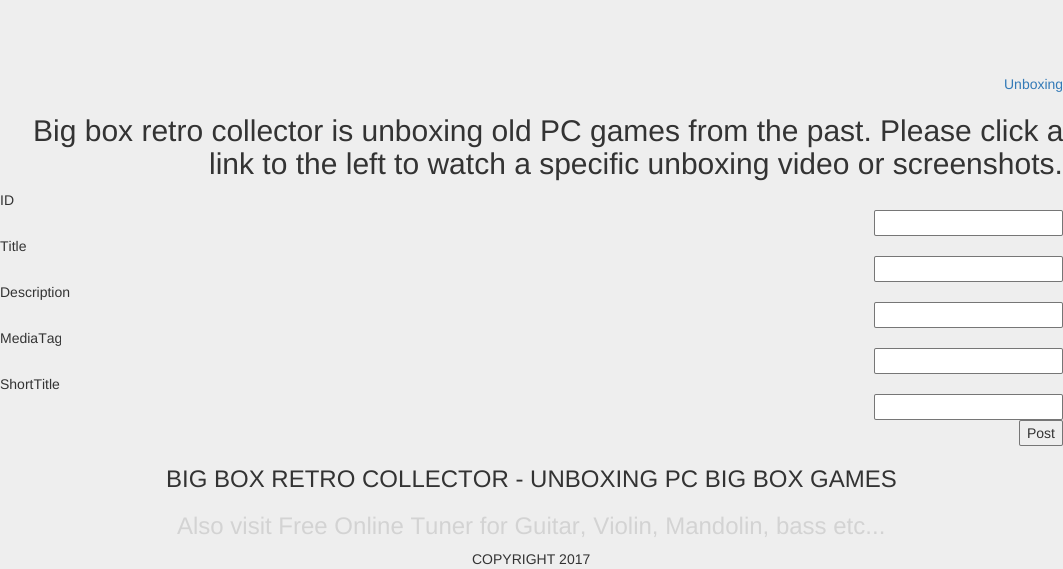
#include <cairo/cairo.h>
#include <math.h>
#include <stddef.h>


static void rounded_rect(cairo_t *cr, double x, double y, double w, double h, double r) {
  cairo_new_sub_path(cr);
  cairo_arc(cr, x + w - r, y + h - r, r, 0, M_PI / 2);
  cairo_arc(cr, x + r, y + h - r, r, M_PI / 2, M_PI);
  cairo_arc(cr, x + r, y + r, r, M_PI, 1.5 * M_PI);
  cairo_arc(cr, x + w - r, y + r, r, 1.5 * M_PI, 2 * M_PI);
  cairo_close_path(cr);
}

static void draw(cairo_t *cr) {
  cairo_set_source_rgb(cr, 238 / 255.0, 238 / 255.0, 238 / 255.0);
  cairo_paint(cr);
  cairo_set_source_rgb(cr, 1, 1, 1);
  rounded_rect(cr, 874.5, 210.5, 188, 25, 1.5);
  cairo_fill_preserve(cr);
  cairo_set_source_rgb(cr, 118 / 255.0, 118 / 255.0, 118 / 255.0);
  cairo_set_line_width(cr, 1);
  cairo_stroke(cr);
  cairo_set_source_rgb(cr, 1, 1, 1);
  rounded_rect(cr, 874.5, 256.5, 188, 25, 1.5);
  cairo_fill_preserve(cr);
  cairo_set_source_rgb(cr, 118 / 255.0, 118 / 255.0, 118 / 255.0);
  cairo_stroke(cr);
  cairo_set_source_rgb(cr, 1, 1, 1);
  rounded_rect(cr, 874.5, 302.5, 188, 25, 1.5);
  cairo_fill_preserve(cr);
  cairo_set_source_rgb(cr, 118 / 255.0, 118 / 255.0, 118 / 255.0);
  cairo_stroke(cr);
  cairo_set_source_rgb(cr, 1, 1, 1);
  rounded_rect(cr, 874.5, 348.5, 188, 25, 1.5);
  cairo_fill_preserve(cr);
  cairo_set_source_rgb(cr, 118 / 255.0, 118 / 255.0, 118 / 255.0);
  cairo_stroke(cr);
  cairo_set_source_rgb(cr, 1, 1, 1);
  rounded_rect(cr, 874.5, 394.5, 188, 25, 1.5);
  cairo_fill_preserve(cr);
  cairo_set_source_rgb(cr, 118 / 255.0, 118 / 255.0, 118 / 255.0);
  cairo_stroke(cr);
  rounded_rect(cr, 1019.5, 420.5, 43, 25, 1.5);
  cairo_stroke(cr);
  cairo_select_font_face(cr, "Liberation Sans", CAIRO_FONT_SLANT_NORMAL, CAIRO_FONT_WEIGHT_NORMAL);
  cairo_set_font_size(cr, 14);
  cairo_set_source_rgb(cr, 51 / 255.0, 122 / 255.0, 183 / 255.0);
  cairo_move_to(cr, 1004, 89);
  cairo_show_text(cr, "Unboxing");
  cairo_set_font_size(cr, 30);
  cairo_set_source_rgb(cr, 51 / 255.0, 51 / 255.0, 51 / 255.0);
  cairo_move_to(cr, 33, 141);
  cairo_show_text(cr, "Big box retro collector is unboxing old PC games from the past. Please click a");
  cairo_move_to(cr, 209, 174);
  cairo_show_text(cr, "link to the left to watch a specific unboxing video or screenshots.");
  cairo_set_font_size(cr, 14);
  cairo_move_to(cr, 0, 205);
  cairo_show_text(cr, "ID");
  cairo_move_to(cr, 0, 251);
  cairo_show_text(cr, "Title");
  cairo_move_to(cr, 0, 297);
  cairo_show_text(cr, "Description");
  cairo_move_to(cr, 0, 343);
  cairo_show_text(cr, "MediaTag");
  cairo_move_to(cr, 0, 389);
  cairo_show_text(cr, "ShortTitle");
  cairo_move_to(cr, 1027, 438);
  cairo_show_text(cr, "Post");
  cairo_set_font_size(cr, 24);
  cairo_move_to(cr, 166, 487);
  cairo_show_text(cr, "BIG BOX RETRO COLLECTOR - UNBOXING PC BIG BOX GAMES");
  cairo_set_source_rgb(cr, 211 / 255.0, 211 / 255.0, 211 / 255.0);
  cairo_move_to(cr, 177, 534);
  cairo_show_text(cr, "Also visit Free Online Tuner for Guitar, Violin, Mandolin, bass etc...");
  cairo_set_font_size(cr, 14);
  cairo_set_source_rgb(cr, 51 / 255.0, 51 / 255.0, 51 / 255.0);
  cairo_move_to(cr, 472, 564);
  cairo_show_text(cr, "COPYRIGHT 2017");
}

int main(void) {
  cairo_surface_t *surface = cairo_image_surface_create(CAIRO_FORMAT_RGB24, 1063, 569);
  cairo_t *cr = cairo_create(surface);
  cairo_font_options_t *options = cairo_font_options_create();
  cairo_font_options_set_hint_metrics(options, CAIRO_HINT_METRICS_OFF);
  cairo_font_options_set_hint_style(options, CAIRO_HINT_STYLE_NONE);
  cairo_set_font_options(cr, options);
  cairo_set_miter_limit(cr, 4);
  draw(cr);
  cairo_surface_write_to_png(surface, "out.png");
  cairo_font_options_destroy(options);
  cairo_destroy(cr);
  cairo_surface_destroy(surface);
  return 0;
}
